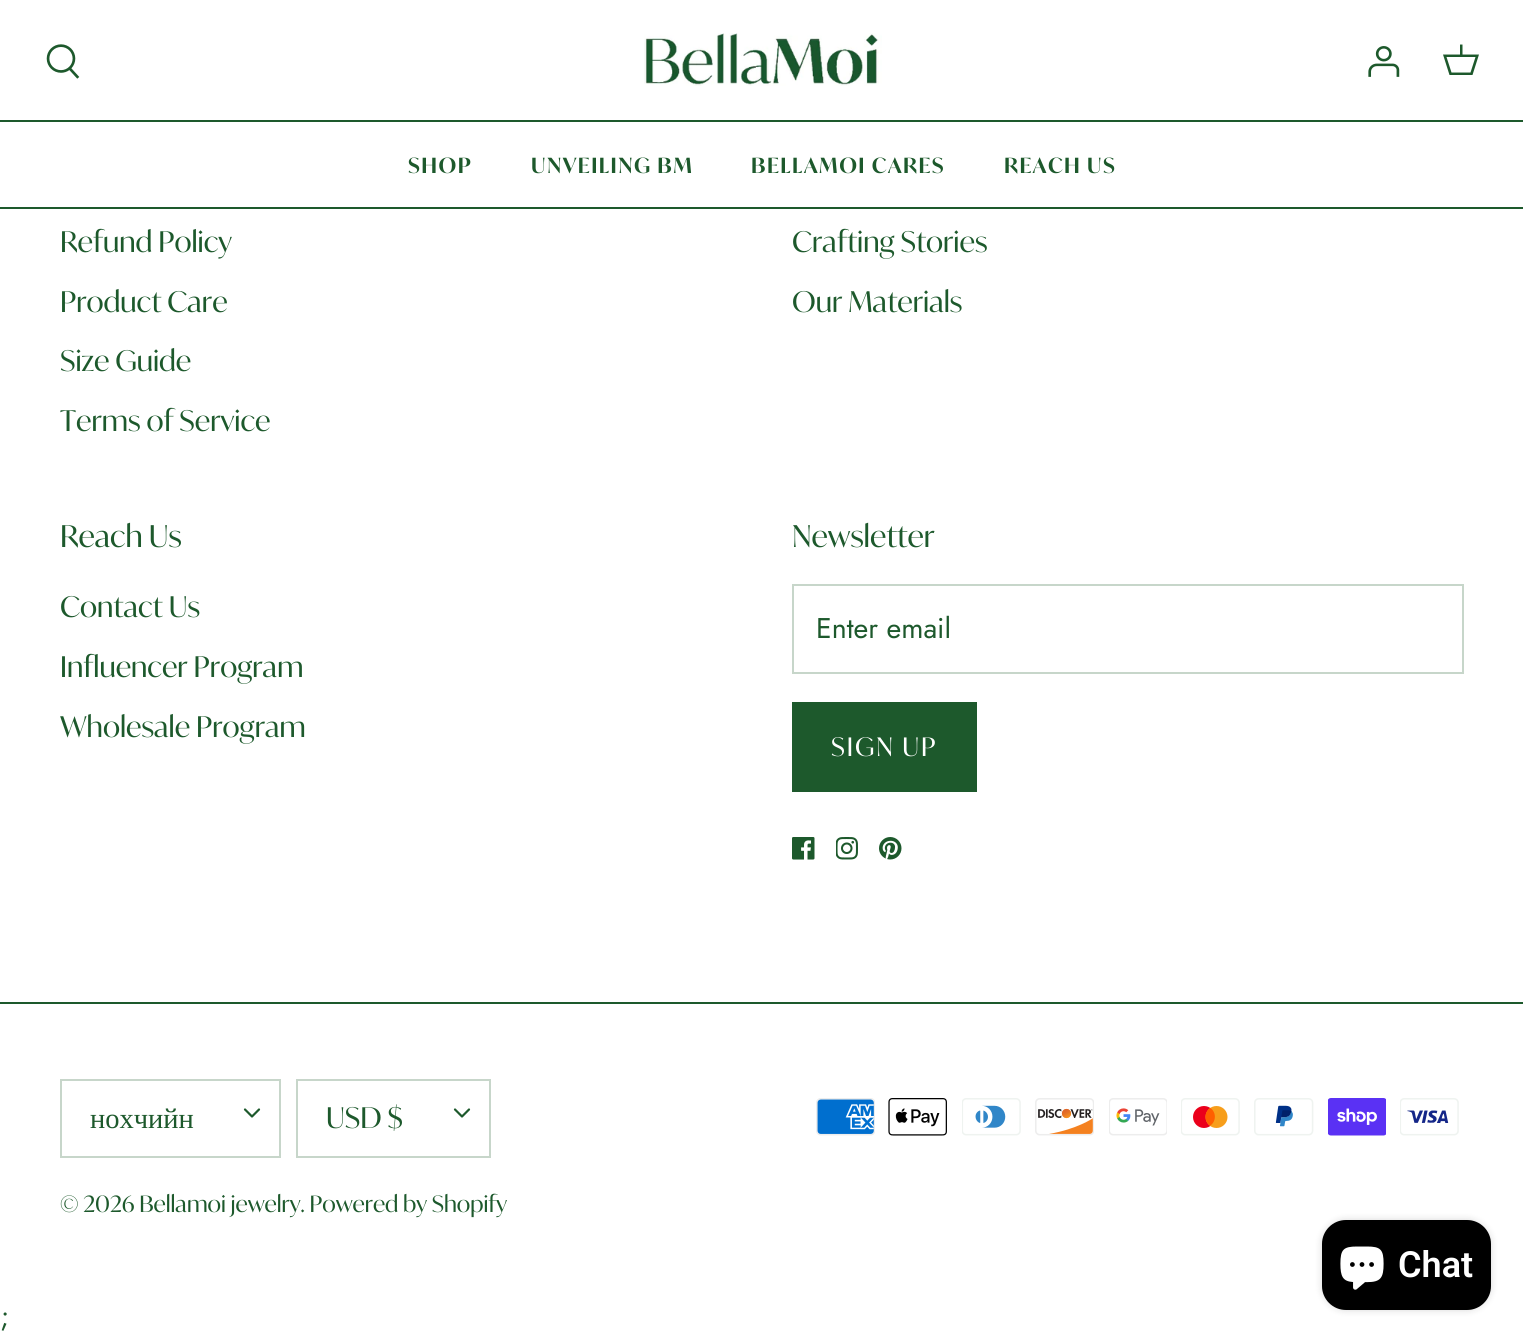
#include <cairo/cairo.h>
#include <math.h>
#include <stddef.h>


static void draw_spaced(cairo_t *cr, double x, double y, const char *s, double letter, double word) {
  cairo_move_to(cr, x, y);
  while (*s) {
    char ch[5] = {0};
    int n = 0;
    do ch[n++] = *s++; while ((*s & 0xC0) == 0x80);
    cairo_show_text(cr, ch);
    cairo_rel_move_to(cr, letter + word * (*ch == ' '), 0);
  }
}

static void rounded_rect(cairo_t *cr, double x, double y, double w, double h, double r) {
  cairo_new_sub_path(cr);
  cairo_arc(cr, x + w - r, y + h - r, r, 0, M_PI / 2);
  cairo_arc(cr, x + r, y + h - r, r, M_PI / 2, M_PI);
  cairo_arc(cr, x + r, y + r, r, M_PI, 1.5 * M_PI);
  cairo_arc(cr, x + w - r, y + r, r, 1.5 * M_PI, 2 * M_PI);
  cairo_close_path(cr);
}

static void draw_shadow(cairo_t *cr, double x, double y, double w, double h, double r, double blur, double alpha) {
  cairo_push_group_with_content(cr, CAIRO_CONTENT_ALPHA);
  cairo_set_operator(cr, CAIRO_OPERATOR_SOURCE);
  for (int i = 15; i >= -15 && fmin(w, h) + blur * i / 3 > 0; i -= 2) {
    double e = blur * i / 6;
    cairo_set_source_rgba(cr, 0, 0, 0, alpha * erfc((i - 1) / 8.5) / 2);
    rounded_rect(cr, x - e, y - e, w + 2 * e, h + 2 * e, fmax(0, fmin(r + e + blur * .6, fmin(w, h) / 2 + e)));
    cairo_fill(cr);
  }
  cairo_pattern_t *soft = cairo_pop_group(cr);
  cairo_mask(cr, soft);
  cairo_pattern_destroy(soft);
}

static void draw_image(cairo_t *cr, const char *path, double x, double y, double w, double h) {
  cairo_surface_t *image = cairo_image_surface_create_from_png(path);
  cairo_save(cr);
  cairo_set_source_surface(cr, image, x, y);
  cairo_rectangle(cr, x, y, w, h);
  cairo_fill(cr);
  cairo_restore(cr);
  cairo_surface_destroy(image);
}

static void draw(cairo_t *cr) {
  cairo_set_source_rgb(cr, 1, 1, 1);
  cairo_paint(cr);
  cairo_set_source_rgb(cr, 29 / 255.0, 89 / 255.0, 44 / 255.0);
  cairo_rectangle(cr, 0, 120, 1523, 2);
  cairo_fill(cr);
  draw_image(cr, "images/1.png", 46, 44, 34, 35);
  draw_image(cr, "images/2.png", 644, 33, 238, 53);
  draw_image(cr, "images/3.png", 1368, 46, 32, 31);
  cairo_new_path(cr);
  cairo_move_to(cr, 1460, 54.5);
  cairo_line_to(cr, 1460, 44.5);
  cairo_line_to(cr, 1462.5, 44.5);
  cairo_line_to(cr, 1462.5, 54.5);
  cairo_line_to(cr, 1479, 54.5);
  cairo_line_to(cr, 1472.5, 75);
  cairo_line_to(cr, 1449.5, 75);
  cairo_line_to(cr, 1443, 54.5);
  cairo_close_path(cr);
  cairo_move_to(cr, 1446.5, 57);
  cairo_line_to(cr, 1451.5, 72.5);
  cairo_line_to(cr, 1470.5, 72.5);
  cairo_line_to(cr, 1475.5, 57);
  cairo_close_path(cr);
  cairo_fill(cr);
  cairo_rectangle(cr, 0, 207, 1523, 2);
  cairo_fill(cr);
  cairo_rectangle(cr, 793, 585, 670, 88);
  cairo_set_source_rgb(cr, 199 / 255.0, 214 / 255.0, 202 / 255.0);
  cairo_stroke(cr);
  cairo_set_source_rgb(cr, 29 / 255.0, 89 / 255.0, 44 / 255.0);
  cairo_rectangle(cr, 792, 702, 185, 90);
  cairo_fill(cr);
  draw_image(cr, "images/4.png", 792, 837, 23, 23);
  draw_image(cr, "images/5.png", 836, 837, 22, 23);
  draw_image(cr, "images/6.png", 879, 837, 23, 23);
  cairo_rectangle(cr, 0, 1002, 1523, 2);
  cairo_fill(cr);
  cairo_rectangle(cr, 61, 1080, 219, 77);
  cairo_set_source_rgb(cr, 199 / 255.0, 214 / 255.0, 202 / 255.0);
  cairo_stroke(cr);
  cairo_new_path(cr);
  cairo_move_to(cr, 245, 1109.5);
  cairo_line_to(cr, 252, 1116.5);
  cairo_line_to(cr, 259, 1109.5);
  cairo_set_source_rgb(cr, 29 / 255.0, 89 / 255.0, 44 / 255.0);
  cairo_set_line_width(cr, 2.2);
  cairo_set_line_cap(cr, CAIRO_LINE_CAP_ROUND);
  cairo_set_line_join(cr, CAIRO_LINE_JOIN_ROUND);
  cairo_stroke(cr);
  cairo_rectangle(cr, 297, 1080, 193, 77);
  cairo_set_source_rgb(cr, 199 / 255.0, 214 / 255.0, 202 / 255.0);
  cairo_set_line_width(cr, 2);
  cairo_set_line_cap(cr, CAIRO_LINE_CAP_BUTT);
  cairo_set_line_join(cr, CAIRO_LINE_JOIN_MITER);
  cairo_stroke(cr);
  cairo_new_path(cr);
  cairo_move_to(cr, 455, 1109.5);
  cairo_line_to(cr, 462, 1116.5);
  cairo_line_to(cr, 469, 1109.5);
  cairo_set_source_rgb(cr, 29 / 255.0, 89 / 255.0, 44 / 255.0);
  cairo_set_line_width(cr, 2.2);
  cairo_set_line_cap(cr, CAIRO_LINE_CAP_ROUND);
  cairo_set_line_join(cr, CAIRO_LINE_JOIN_ROUND);
  cairo_stroke(cr);
  draw_image(cr, "images/7.png", 816, 1098, 59, 38);
  draw_image(cr, "images/8.png", 888, 1098, 59, 38);
  draw_image(cr, "images/9.png", 962, 1098, 59, 38);
  draw_image(cr, "images/10.png", 1035, 1098, 59, 38);
  draw_image(cr, "images/11.png", 1109, 1098, 58, 38);
  draw_image(cr, "images/12.png", 1181, 1098, 59, 38);
  draw_image(cr, "images/13.png", 1254, 1098, 60, 38);
  draw_image(cr, "images/14.png", 1328, 1098, 58, 38);
  draw_image(cr, "images/15.png", 1400, 1098, 59, 38);
  cairo_set_source_rgb(cr, 0, 0, 0);
  draw_shadow(cr, 1322, 1220, 169, 90, 24, 4, 0.15);
  cairo_set_source_rgb(cr, 0, 0, 0);
  rounded_rect(cr, 1322, 1220, 169, 90, 24);
  cairo_fill(cr);
  draw_image(cr, "images/16.png", 1340, 1246, 44, 44);
  cairo_select_font_face(cr, "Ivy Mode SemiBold", CAIRO_FONT_SLANT_NORMAL, CAIRO_FONT_WEIGHT_NORMAL);
  cairo_set_font_size(cr, 21);
  cairo_set_source_rgb(cr, 29 / 255.0, 89 / 255.0, 44 / 255.0);
  draw_spaced(cr, 408, 173, "SHOP", 1.5, 0);
  draw_spaced(cr, 531, 173, "UNVEILING BM", 1.5, 0);
  draw_spaced(cr, 751, 173, "BELLAMOI CARES", 1.5, 0);
  draw_spaced(cr, 1004, 173, "REACH US", 1.5, 0);
  cairo_select_font_face(cr, "Ivy Mode", CAIRO_FONT_SLANT_NORMAL, CAIRO_FONT_WEIGHT_NORMAL);
  cairo_set_font_size(cr, 28.5);
  cairo_move_to(cr, 60, 252);
  cairo_show_text(cr, "Refund Policy");
  cairo_move_to(cr, 60, 312);
  cairo_show_text(cr, "Product Care");
  cairo_move_to(cr, 60, 371);
  cairo_show_text(cr, "Size Guide");
  cairo_move_to(cr, 60, 431);
  cairo_show_text(cr, "Terms of Service");
  cairo_move_to(cr, 792, 252);
  cairo_show_text(cr, "Crafting Stories");
  cairo_move_to(cr, 792, 312);
  cairo_show_text(cr, "Our Materials");
  cairo_set_font_size(cr, 30);
  cairo_move_to(cr, 60, 547);
  cairo_show_text(cr, "Reach Us");
  cairo_set_font_size(cr, 28.5);
  cairo_move_to(cr, 60, 617);
  cairo_show_text(cr, "Contact Us");
  cairo_move_to(cr, 60, 677);
  cairo_show_text(cr, "Influencer Program");
  cairo_move_to(cr, 60, 737);
  cairo_show_text(cr, "Wholesale Program");
  cairo_set_font_size(cr, 30);
  cairo_move_to(cr, 792, 547);
  cairo_show_text(cr, "Newsletter");
  cairo_select_font_face(cr, "Jost", CAIRO_FONT_SLANT_NORMAL, CAIRO_FONT_WEIGHT_NORMAL);
  cairo_set_font_size(cr, 28.5);
  cairo_move_to(cr, 816, 638);
  cairo_show_text(cr, "Enter email");
  cairo_select_font_face(cr, "Ivy Mode", CAIRO_FONT_SLANT_NORMAL, CAIRO_FONT_WEIGHT_NORMAL);
  cairo_set_font_size(cr, 25.5);
  cairo_set_source_rgb(cr, 1, 1, 1);
  draw_spaced(cr, 831, 756, "SIGN UP", 2, 0);
  cairo_select_font_face(cr, "Liberation Serif", CAIRO_FONT_SLANT_NORMAL, CAIRO_FONT_WEIGHT_NORMAL);
  cairo_set_font_size(cr, 28.5);
  cairo_set_source_rgb(cr, 29 / 255.0, 89 / 255.0, 44 / 255.0);
  cairo_move_to(cr, 90, 1128);
  cairo_show_text(cr, "нохчийн");
  cairo_select_font_face(cr, "Ivy Mode", CAIRO_FONT_SLANT_NORMAL, CAIRO_FONT_WEIGHT_NORMAL);
  cairo_move_to(cr, 326, 1128);
  cairo_show_text(cr, "USD $");
  cairo_set_font_size(cr, 22.5);
  cairo_move_to(cr, 60, 1212);
  cairo_show_text(cr, "© 2026 Bellamoi jewelry. Powered by Shopify");
  cairo_select_font_face(cr, "Roboto SemiBold", CAIRO_FONT_SLANT_NORMAL, CAIRO_FONT_WEIGHT_NORMAL);
  cairo_set_font_size(cr, 36);
  cairo_set_source_rgb(cr, 1, 1, 1);
  cairo_move_to(cr, 1398, 1277);
  cairo_show_text(cr, "Chat");
  cairo_select_font_face(cr, "Jost", CAIRO_FONT_SLANT_NORMAL, CAIRO_FONT_WEIGHT_NORMAL);
  cairo_set_font_size(cr, 28.5);
  cairo_set_source_rgb(cr, 29 / 255.0, 89 / 255.0, 44 / 255.0);
  cairo_move_to(cr, 0, 1326);
  cairo_show_text(cr, ";");
}

int main(void) {
  cairo_surface_t *surface = cairo_image_surface_create(CAIRO_FORMAT_RGB24, 1523, 1341);
  cairo_t *cr = cairo_create(surface);
  cairo_font_options_t *options = cairo_font_options_create();
  cairo_font_options_set_hint_metrics(options, CAIRO_HINT_METRICS_OFF);
  cairo_font_options_set_hint_style(options, CAIRO_HINT_STYLE_NONE);
  cairo_set_font_options(cr, options);
  cairo_set_miter_limit(cr, 4);
  draw(cr);
  cairo_surface_write_to_png(surface, "out.png");
  cairo_font_options_destroy(options);
  cairo_destroy(cr);
  cairo_surface_destroy(surface);
  return 0;
}
